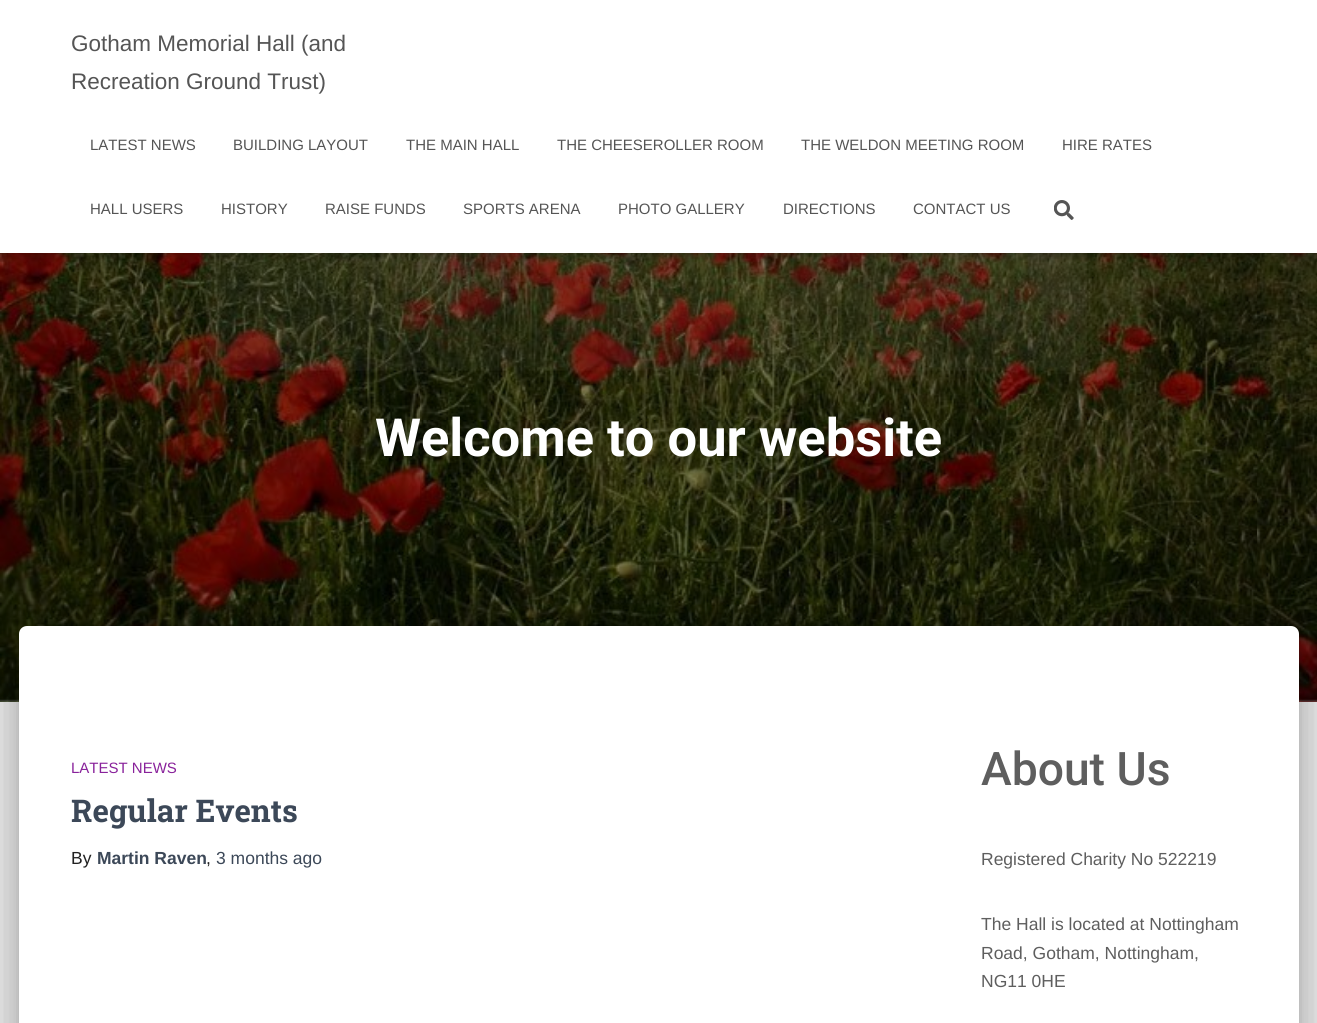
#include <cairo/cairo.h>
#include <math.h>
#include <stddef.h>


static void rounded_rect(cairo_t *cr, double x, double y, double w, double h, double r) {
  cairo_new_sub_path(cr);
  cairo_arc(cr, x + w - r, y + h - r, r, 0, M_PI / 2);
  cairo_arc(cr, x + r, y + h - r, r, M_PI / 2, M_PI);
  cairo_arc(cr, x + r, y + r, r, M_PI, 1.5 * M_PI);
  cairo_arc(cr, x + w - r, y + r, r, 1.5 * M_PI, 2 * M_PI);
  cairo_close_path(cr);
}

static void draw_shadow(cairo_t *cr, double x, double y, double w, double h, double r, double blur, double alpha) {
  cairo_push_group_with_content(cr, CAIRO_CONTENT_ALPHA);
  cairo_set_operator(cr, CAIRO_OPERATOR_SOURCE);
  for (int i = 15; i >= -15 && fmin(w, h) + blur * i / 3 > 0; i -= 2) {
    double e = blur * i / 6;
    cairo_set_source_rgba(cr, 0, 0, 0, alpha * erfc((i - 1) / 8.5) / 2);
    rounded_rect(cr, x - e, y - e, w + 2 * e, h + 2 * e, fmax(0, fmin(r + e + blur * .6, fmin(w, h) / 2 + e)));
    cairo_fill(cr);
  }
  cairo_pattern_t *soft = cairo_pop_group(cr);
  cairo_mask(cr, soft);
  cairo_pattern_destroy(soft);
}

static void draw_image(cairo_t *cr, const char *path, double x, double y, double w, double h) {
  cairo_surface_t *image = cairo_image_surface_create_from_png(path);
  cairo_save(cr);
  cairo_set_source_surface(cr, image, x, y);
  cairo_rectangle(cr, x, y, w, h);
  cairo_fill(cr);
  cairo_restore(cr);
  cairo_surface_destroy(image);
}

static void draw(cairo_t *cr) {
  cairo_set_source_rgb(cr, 229 / 255.0, 229 / 255.0, 229 / 255.0);
  cairo_paint(cr);
  draw_image(cr, "images/2.png", 0, 253, 1317, 449);
  cairo_set_source_rgb(cr, 0, 0, 0);
  draw_shadow(cr, 3, 8, 1312, 247, 0, 3, 0.1);
  draw_shadow(cr, 0, 1, 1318, 253, 0, 6, 0.12);
  draw_shadow(cr, 8, 9, 1302, 237, 0, 6, 0.42);
  cairo_set_source_rgb(cr, 1, 1, 1);
  cairo_rectangle(cr, 0, 0, 1317, 253);
  cairo_fill(cr);
  draw_image(cr, "images/1.png", 1054, 200, 20, 20);
  cairo_set_source_rgb(cr, 0, 0, 0);
  draw_shadow(cr, 25, 643, 1268, 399, 1, 6, 0.2);
  draw_shadow(cr, 13, 628, 1292, 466, 14, 19, 0.12);
  draw_shadow(cr, 16, 644, 1285, 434, 10, 15, 0.14);
  cairo_set_source_rgb(cr, 1, 1, 1);
  cairo_new_path(cr);
  cairo_move_to(cr, 27, 626);
  cairo_line_to(cr, 1291, 626);
  cairo_curve_to(cr, 1295.5, 626, 1299, 629.5, 1299, 634);
  cairo_line_to(cr, 1299, 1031);
  cairo_line_to(cr, 19, 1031);
  cairo_line_to(cr, 19, 634);
  cairo_curve_to(cr, 19, 629.5, 22.5, 626, 27, 626);
  cairo_close_path(cr);
  cairo_fill(cr);
  cairo_select_font_face(cr, "Liberation Sans", CAIRO_FONT_SLANT_NORMAL, CAIRO_FONT_WEIGHT_NORMAL);
  cairo_set_font_size(cr, 22.5);
  cairo_set_source_rgb(cr, 85 / 255.0, 85 / 255.0, 85 / 255.0);
  cairo_move_to(cr, 71, 51);
  cairo_show_text(cr, "Gotham Memorial Hall (and");
  cairo_move_to(cr, 71, 89);
  cairo_show_text(cr, "Recreation Ground Trust)");
  cairo_set_font_size(cr, 15);
  cairo_move_to(cr, 90, 150);
  cairo_show_text(cr, "LATEST NEWS");
  cairo_move_to(cr, 233, 150);
  cairo_show_text(cr, "BUILDING LAYOUT");
  cairo_move_to(cr, 406, 150);
  cairo_show_text(cr, "THE MAIN HALL");
  cairo_move_to(cr, 557, 150);
  cairo_show_text(cr, "THE CHEESEROLLER ROOM");
  cairo_move_to(cr, 801, 150);
  cairo_show_text(cr, "THE WELDON MEETING ROOM");
  cairo_move_to(cr, 1062, 150);
  cairo_show_text(cr, "HIRE RATES");
  cairo_move_to(cr, 90, 214);
  cairo_show_text(cr, "HALL USERS");
  cairo_move_to(cr, 221, 214);
  cairo_show_text(cr, "HISTORY");
  cairo_move_to(cr, 325, 214);
  cairo_show_text(cr, "RAISE FUNDS");
  cairo_move_to(cr, 463, 214);
  cairo_show_text(cr, "SPORTS ARENA");
  cairo_move_to(cr, 618, 214);
  cairo_show_text(cr, "PHOTO GALLERY");
  cairo_move_to(cr, 783, 214);
  cairo_show_text(cr, "DIRECTIONS");
  cairo_move_to(cr, 913, 214);
  cairo_show_text(cr, "CONTACT US");
  cairo_select_font_face(cr, "Roboto", CAIRO_FONT_SLANT_NORMAL, CAIRO_FONT_WEIGHT_BOLD);
  cairo_set_font_size(cr, 52.5);
  cairo_set_source_rgb(cr, 1, 1, 1);
  cairo_move_to(cr, 375, 456);
  cairo_show_text(cr, "Welcome to our website");
  cairo_select_font_face(cr, "Liberation Sans", CAIRO_FONT_SLANT_NORMAL, CAIRO_FONT_WEIGHT_NORMAL);
  cairo_set_font_size(cr, 15);
  cairo_set_source_rgb(cr, 137 / 255.0, 34 / 255.0, 155 / 255.0);
  cairo_move_to(cr, 71, 773);
  cairo_show_text(cr, "LATEST NEWS");
  cairo_select_font_face(cr, "Roboto Slab", CAIRO_FONT_SLANT_NORMAL, CAIRO_FONT_WEIGHT_BOLD);
  cairo_set_font_size(cr, 31.25);
  cairo_set_source_rgb(cr, 60 / 255.0, 72 / 255.0, 88 / 255.0);
  cairo_move_to(cr, 71, 822);
  cairo_show_text(cr, "Regular Events");
  cairo_select_font_face(cr, "Liberation Sans", CAIRO_FONT_SLANT_NORMAL, CAIRO_FONT_WEIGHT_NORMAL);
  cairo_set_font_size(cr, 17.5);
  cairo_set_source_rgb(cr, 33 / 255.0, 33 / 255.0, 33 / 255.0);
  cairo_move_to(cr, 71, 864);
  cairo_show_text(cr, "By");
  cairo_select_font_face(cr, "Liberation Sans", CAIRO_FONT_SLANT_NORMAL, CAIRO_FONT_WEIGHT_BOLD);
  cairo_set_source_rgb(cr, 60 / 255.0, 72 / 255.0, 88 / 255.0);
  cairo_move_to(cr, 97, 864);
  cairo_show_text(cr, "Martin Raven");
  cairo_select_font_face(cr, "Liberation Sans", CAIRO_FONT_SLANT_NORMAL, CAIRO_FONT_WEIGHT_NORMAL);
  cairo_set_source_rgb(cr, 33 / 255.0, 33 / 255.0, 33 / 255.0);
  cairo_move_to(cr, 206, 864);
  cairo_show_text(cr, ",");
  cairo_set_source_rgb(cr, 60 / 255.0, 72 / 255.0, 88 / 255.0);
  cairo_move_to(cr, 216, 864);
  cairo_show_text(cr, "3 months ago");
  cairo_select_font_face(cr, "Roboto Medium", CAIRO_FONT_SLANT_NORMAL, CAIRO_FONT_WEIGHT_NORMAL);
  cairo_set_font_size(cr, 46.25);
  cairo_set_source_rgb(cr, 94 / 255.0, 94 / 255.0, 94 / 255.0);
  cairo_move_to(cr, 981, 785);
  cairo_show_text(cr, "About Us");
  cairo_select_font_face(cr, "Liberation Sans", CAIRO_FONT_SLANT_NORMAL, CAIRO_FONT_WEIGHT_NORMAL);
  cairo_set_font_size(cr, 17.5);
  cairo_move_to(cr, 981, 865);
  cairo_show_text(cr, "Registered Charity No 522219");
  cairo_move_to(cr, 981, 930);
  cairo_show_text(cr, "The Hall is located at Nottingham");
  cairo_move_to(cr, 981, 959);
  cairo_show_text(cr, "Road, Gotham, Nottingham,");
  cairo_move_to(cr, 981, 987);
  cairo_show_text(cr, "NG11 0HE");
}

int main(void) {
  cairo_surface_t *surface = cairo_image_surface_create(CAIRO_FORMAT_RGB24, 1317, 1023);
  cairo_t *cr = cairo_create(surface);
  cairo_font_options_t *options = cairo_font_options_create();
  cairo_font_options_set_hint_metrics(options, CAIRO_HINT_METRICS_OFF);
  cairo_font_options_set_hint_style(options, CAIRO_HINT_STYLE_NONE);
  cairo_set_font_options(cr, options);
  cairo_set_miter_limit(cr, 4);
  draw(cr);
  cairo_surface_write_to_png(surface, "out.png");
  cairo_font_options_destroy(options);
  cairo_destroy(cr);
  cairo_surface_destroy(surface);
  return 0;
}
